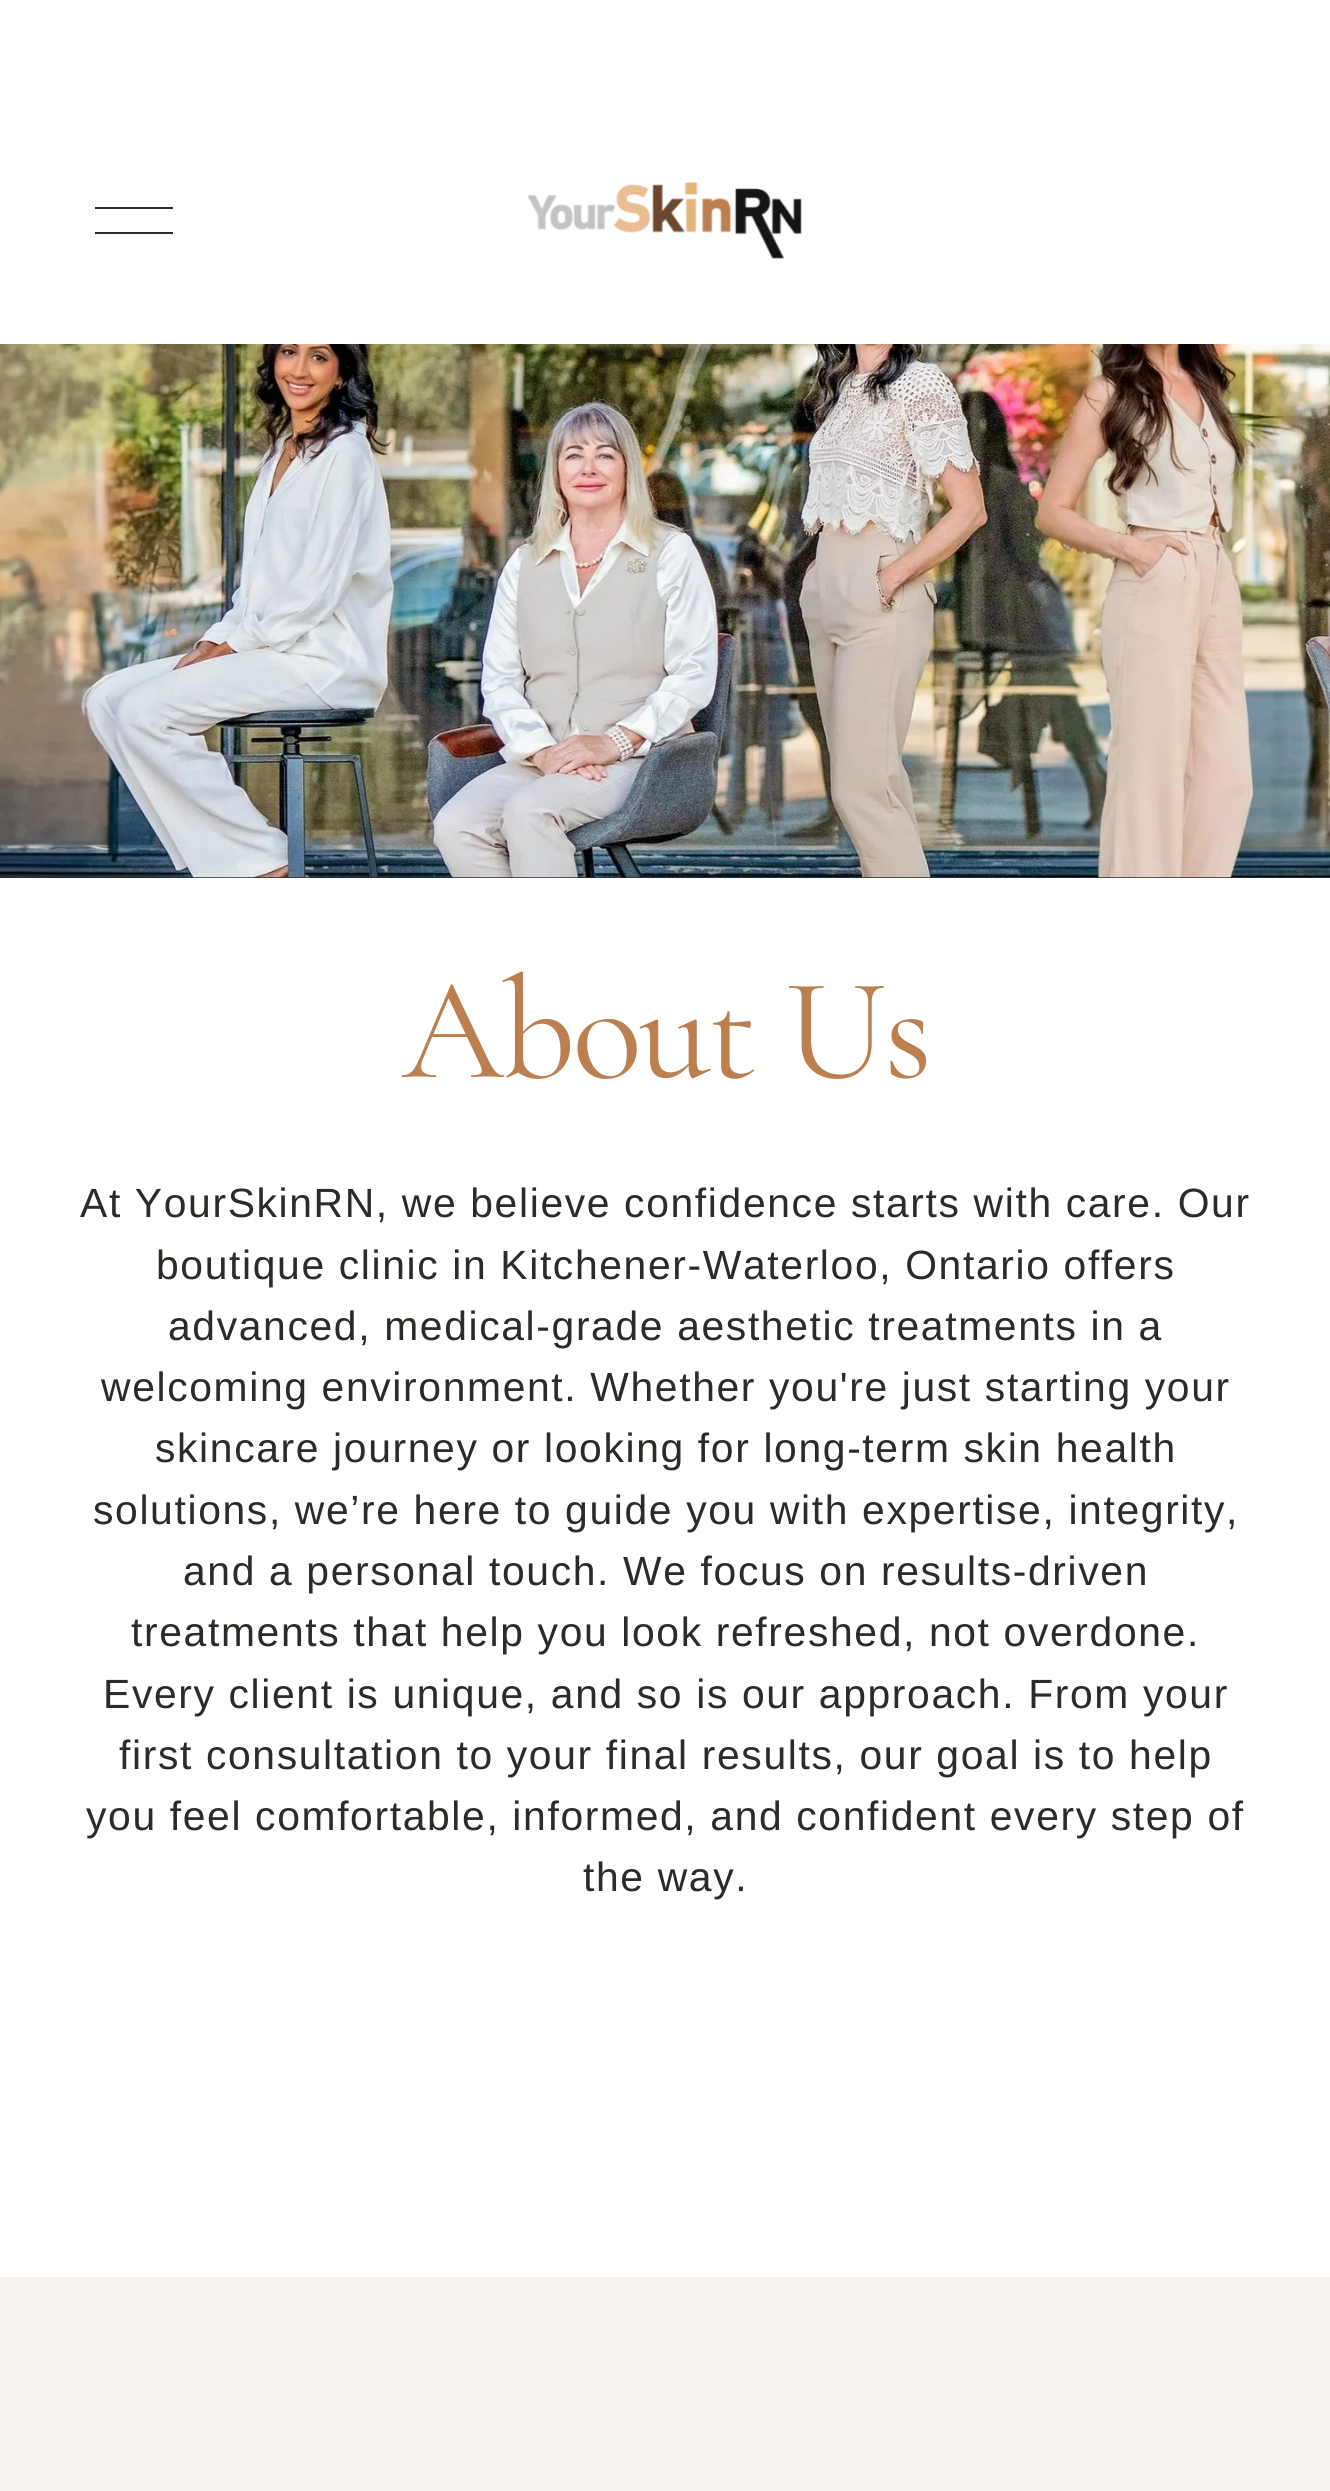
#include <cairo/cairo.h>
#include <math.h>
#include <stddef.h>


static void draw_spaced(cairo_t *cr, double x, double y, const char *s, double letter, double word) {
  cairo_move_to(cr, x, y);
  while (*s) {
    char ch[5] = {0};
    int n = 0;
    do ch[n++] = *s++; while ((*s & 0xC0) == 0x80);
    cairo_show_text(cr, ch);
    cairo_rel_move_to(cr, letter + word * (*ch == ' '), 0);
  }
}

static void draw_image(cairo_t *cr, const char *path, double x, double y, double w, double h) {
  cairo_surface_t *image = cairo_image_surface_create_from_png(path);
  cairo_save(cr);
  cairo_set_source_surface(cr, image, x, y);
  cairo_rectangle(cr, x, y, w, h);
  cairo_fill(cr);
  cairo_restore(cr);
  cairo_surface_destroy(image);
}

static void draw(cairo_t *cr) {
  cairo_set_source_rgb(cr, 246 / 255.0, 243 / 255.0, 239 / 255.0);
  cairo_paint(cr);
  cairo_set_source_rgb(cr, 1, 1, 1);
  cairo_rectangle(cr, 0, 0, 1330, 344);
  cairo_fill(cr);
  cairo_set_source_rgb(cr, 45 / 255.0, 42 / 255.0, 39 / 255.0);
  cairo_rectangle(cr, 95, 207, 78, 2);
  cairo_fill(cr);
  cairo_rectangle(cr, 95, 232, 78, 2);
  cairo_fill(cr);
  draw_image(cr, "images/1.png", 527, 182, 275, 77);
  cairo_rectangle(cr, 0, 877, 1330, 1);
  cairo_fill(cr);
  draw_image(cr, "images/2.png", 0, 344, 1330, 534);
  cairo_set_source_rgb(cr, 1, 1, 1);
  cairo_rectangle(cr, 0, 878, 1330, 1399);
  cairo_fill(cr);
  cairo_select_font_face(cr, "Cormorant Garamond", CAIRO_FONT_SLANT_NORMAL, CAIRO_FONT_WEIGHT_NORMAL);
  cairo_set_font_size(cr, 145.5);
  cairo_set_source_rgb(cr, 188 / 255.0, 128 / 255.0, 80 / 255.0);
  draw_spaced(cr, 402, 1077, "About Us", -3, 0);
  cairo_select_font_face(cr, "Liberation Sans", CAIRO_FONT_SLANT_NORMAL, CAIRO_FONT_WEIGHT_NORMAL);
  cairo_set_font_size(cr, 40.85);
  cairo_set_source_rgb(cr, 45 / 255.0, 42 / 255.0, 39 / 255.0);
  draw_spaced(cr, 80, 1217, "At YourSkinRN, we believe confidence starts with care. Our", 1.63, 0);
  draw_spaced(cr, 156, 1279, "boutique clinic in Kitchener-Waterloo, Ontario offers", 1.63, 0);
  draw_spaced(cr, 168, 1340, "advanced, medical-grade aesthetic treatments in a", 1.63, 0);
  draw_spaced(cr, 101, 1401, "welcoming environment. Whether you're just starting your", 1.63, 0);
  draw_spaced(cr, 155, 1462, "skincare journey or looking for long-term skin health", 1.63, 0);
  draw_spaced(cr, 93, 1524, "solutions, we’re here to guide you with expertise, integrity,", 1.63, 0);
  draw_spaced(cr, 183, 1585, "and a personal touch. We focus on results-driven", 1.63, 0);
  draw_spaced(cr, 131, 1646, "treatments that help you look refreshed, not overdone.", 1.63, 0);
  draw_spaced(cr, 103, 1708, "Every client is unique, and so is our approach. From your", 1.63, 0);
  draw_spaced(cr, 119, 1769, "first consultation to your final results, our goal is to help", 1.63, 0);
  draw_spaced(cr, 86, 1830, "you feel comfortable, informed, and confident every step of", 1.63, 0);
  draw_spaced(cr, 583, 1891, "the way.", 1.63, 0);
}

int main(void) {
  cairo_surface_t *surface = cairo_image_surface_create(CAIRO_FORMAT_RGB24, 1330, 2491);
  cairo_t *cr = cairo_create(surface);
  cairo_font_options_t *options = cairo_font_options_create();
  cairo_font_options_set_hint_metrics(options, CAIRO_HINT_METRICS_OFF);
  cairo_font_options_set_hint_style(options, CAIRO_HINT_STYLE_NONE);
  cairo_set_font_options(cr, options);
  cairo_set_miter_limit(cr, 4);
  draw(cr);
  cairo_surface_write_to_png(surface, "out.png");
  cairo_font_options_destroy(options);
  cairo_destroy(cr);
  cairo_surface_destroy(surface);
  return 0;
}
